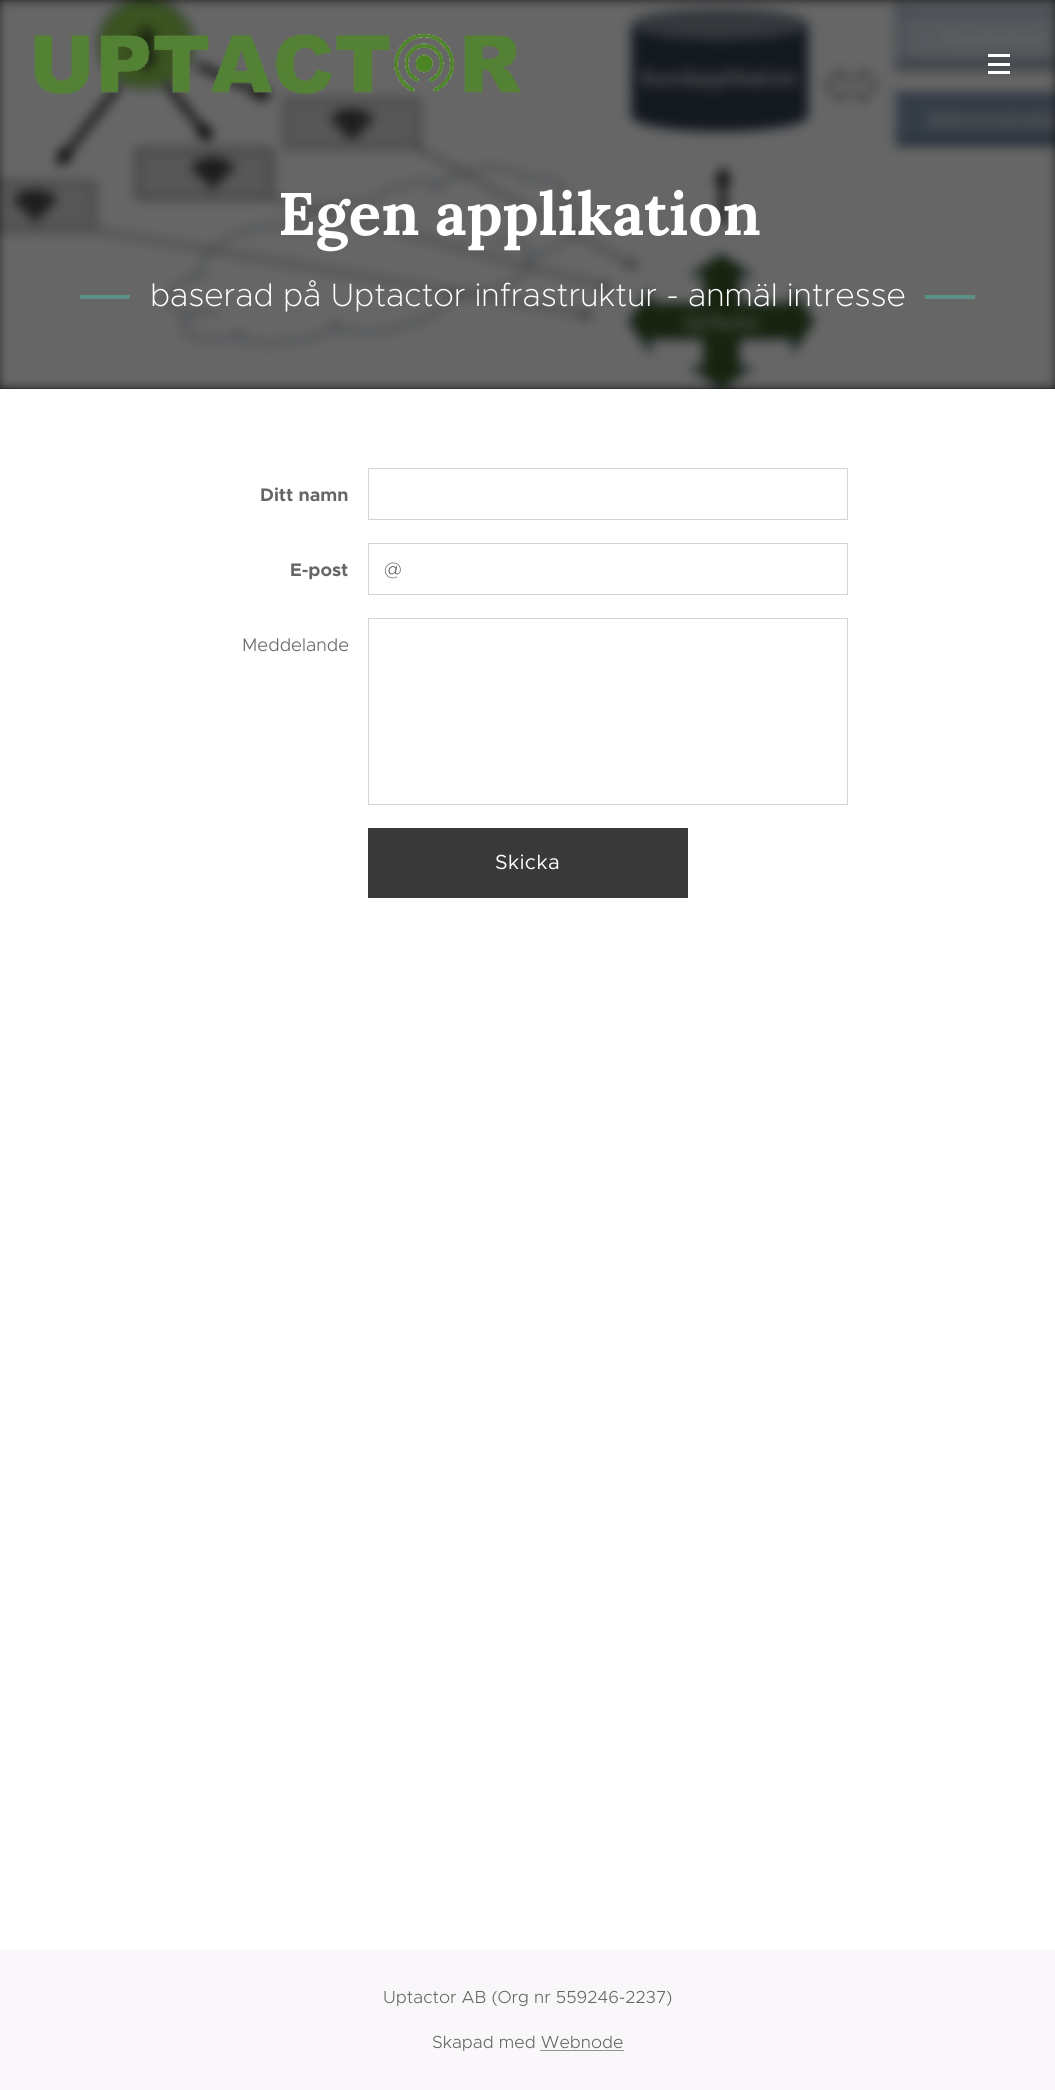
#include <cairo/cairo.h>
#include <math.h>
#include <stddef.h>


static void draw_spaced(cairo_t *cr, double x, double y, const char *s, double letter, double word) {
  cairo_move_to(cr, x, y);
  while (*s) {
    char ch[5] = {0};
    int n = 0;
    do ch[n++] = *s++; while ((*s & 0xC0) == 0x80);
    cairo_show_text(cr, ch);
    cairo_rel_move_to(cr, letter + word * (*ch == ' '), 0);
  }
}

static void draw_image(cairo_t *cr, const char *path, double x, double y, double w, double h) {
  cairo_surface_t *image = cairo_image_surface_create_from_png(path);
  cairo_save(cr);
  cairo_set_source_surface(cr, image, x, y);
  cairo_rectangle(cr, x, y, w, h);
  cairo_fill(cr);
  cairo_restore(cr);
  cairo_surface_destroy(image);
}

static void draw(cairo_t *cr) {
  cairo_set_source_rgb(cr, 1, 1, 1);
  cairo_paint(cr);
  cairo_set_source_rgb(cr, 16 / 255.0, 16 / 255.0, 16 / 255.0);
  cairo_rectangle(cr, 0, 0, 1055, 389);
  cairo_fill(cr);
  draw_image(cr, "images/2.png", 0, 0, 1055, 389);
  draw_image(cr, "images/1.png", 34, 33, 486, 61);
  cairo_set_source_rgb(cr, 1, 1, 1);
  cairo_rectangle(cr, 988, 63, 22, 3);
  cairo_fill(cr);
  cairo_rectangle(cr, 988, 54, 22, 3);
  cairo_fill(cr);
  cairo_rectangle(cr, 988, 71, 22, 3);
  cairo_fill(cr);
  cairo_set_source_rgb(cr, 91 / 255.0, 144 / 255.0, 133 / 255.0);
  cairo_rectangle(cr, 80, 295, 50, 4);
  cairo_fill(cr);
  cairo_rectangle(cr, 925, 295, 50, 4);
  cairo_fill(cr);
  cairo_rectangle(cr, 368.5, 468.5, 479, 51);
  cairo_set_source_rgb(cr, 212 / 255.0, 212 / 255.0, 212 / 255.0);
  cairo_set_line_width(cr, 1);
  cairo_stroke(cr);
  cairo_rectangle(cr, 368.5, 543.5, 479, 51);
  cairo_stroke(cr);
  cairo_rectangle(cr, 368.5, 618.5, 479, 186);
  cairo_stroke(cr);
  cairo_set_source_rgb(cr, 57 / 255.0, 57 / 255.0, 57 / 255.0);
  cairo_rectangle(cr, 368, 828, 320, 70);
  cairo_fill(cr);
  cairo_set_source_rgb(cr, 249 / 255.0, 247 / 255.0, 250 / 255.0);
  cairo_rectangle(cr, 0, 1950, 1055, 140);
  cairo_fill(cr);
  cairo_select_font_face(cr, "Lora", CAIRO_FONT_SLANT_NORMAL, CAIRO_FONT_WEIGHT_BOLD);
  cairo_set_font_size(cr, 60);
  cairo_set_source_rgb(cr, 1, 1, 1);
  cairo_move_to(cr, 278, 235);
  cairo_show_text(cr, "Egen applikation");
  cairo_select_font_face(cr, "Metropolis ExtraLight", CAIRO_FONT_SLANT_NORMAL, CAIRO_FONT_WEIGHT_NORMAL);
  cairo_set_font_size(cr, 32.5);
  cairo_move_to(cr, 150, 306);
  cairo_show_text(cr, "baserad på Uptactor infrastruktur - anmäl intresse");
  cairo_select_font_face(cr, "Metropolis", CAIRO_FONT_SLANT_NORMAL, CAIRO_FONT_WEIGHT_BOLD);
  cairo_set_font_size(cr, 18.25);
  cairo_set_source_rgb(cr, 102 / 255.0, 102 / 255.0, 102 / 255.0);
  cairo_move_to(cr, 260, 501);
  cairo_show_text(cr, "Ditt namn");
  cairo_move_to(cr, 290, 576);
  cairo_show_text(cr, "E-post");
  cairo_select_font_face(cr, "Metropolis Light", CAIRO_FONT_SLANT_NORMAL, CAIRO_FONT_WEIGHT_NORMAL);
  cairo_set_font_size(cr, 20);
  cairo_move_to(cr, 384, 576);
  cairo_show_text(cr, "@");
  cairo_set_font_size(cr, 18.25);
  cairo_move_to(cr, 242, 651);
  cairo_show_text(cr, "Meddelande");
  cairo_select_font_face(cr, "Metropolis", CAIRO_FONT_SLANT_NORMAL, CAIRO_FONT_WEIGHT_NORMAL);
  cairo_set_font_size(cr, 20.5);
  cairo_set_source_rgb(cr, 1, 1, 1);
  draw_spaced(cr, 495, 869, "Skicka", 0.5, 0);
  cairo_select_font_face(cr, "Metropolis Light", CAIRO_FONT_SLANT_NORMAL, CAIRO_FONT_WEIGHT_NORMAL);
  cairo_set_font_size(cr, 17.5);
  cairo_set_source_rgb(cr, 102 / 255.0, 102 / 255.0, 102 / 255.0);
  cairo_move_to(cr, 383, 2003);
  cairo_show_text(cr, "Uptactor AB (Org nr 559246-2237)");
  cairo_move_to(cr, 432, 2048);
  cairo_show_text(cr, "Skapad med Webnode");
  cairo_set_source_rgb(cr, 146 / 255.0, 146 / 255.0, 146 / 255.0);
  cairo_rectangle(cr, 540, 2050, 84, 1);
  cairo_fill(cr);
}

int main(void) {
  cairo_surface_t *surface = cairo_image_surface_create(CAIRO_FORMAT_RGB24, 1055, 2090);
  cairo_t *cr = cairo_create(surface);
  cairo_font_options_t *options = cairo_font_options_create();
  cairo_font_options_set_hint_metrics(options, CAIRO_HINT_METRICS_OFF);
  cairo_font_options_set_hint_style(options, CAIRO_HINT_STYLE_NONE);
  cairo_set_font_options(cr, options);
  cairo_set_miter_limit(cr, 4);
  draw(cr);
  cairo_surface_write_to_png(surface, "out.png");
  cairo_font_options_destroy(options);
  cairo_destroy(cr);
  cairo_surface_destroy(surface);
  return 0;
}
